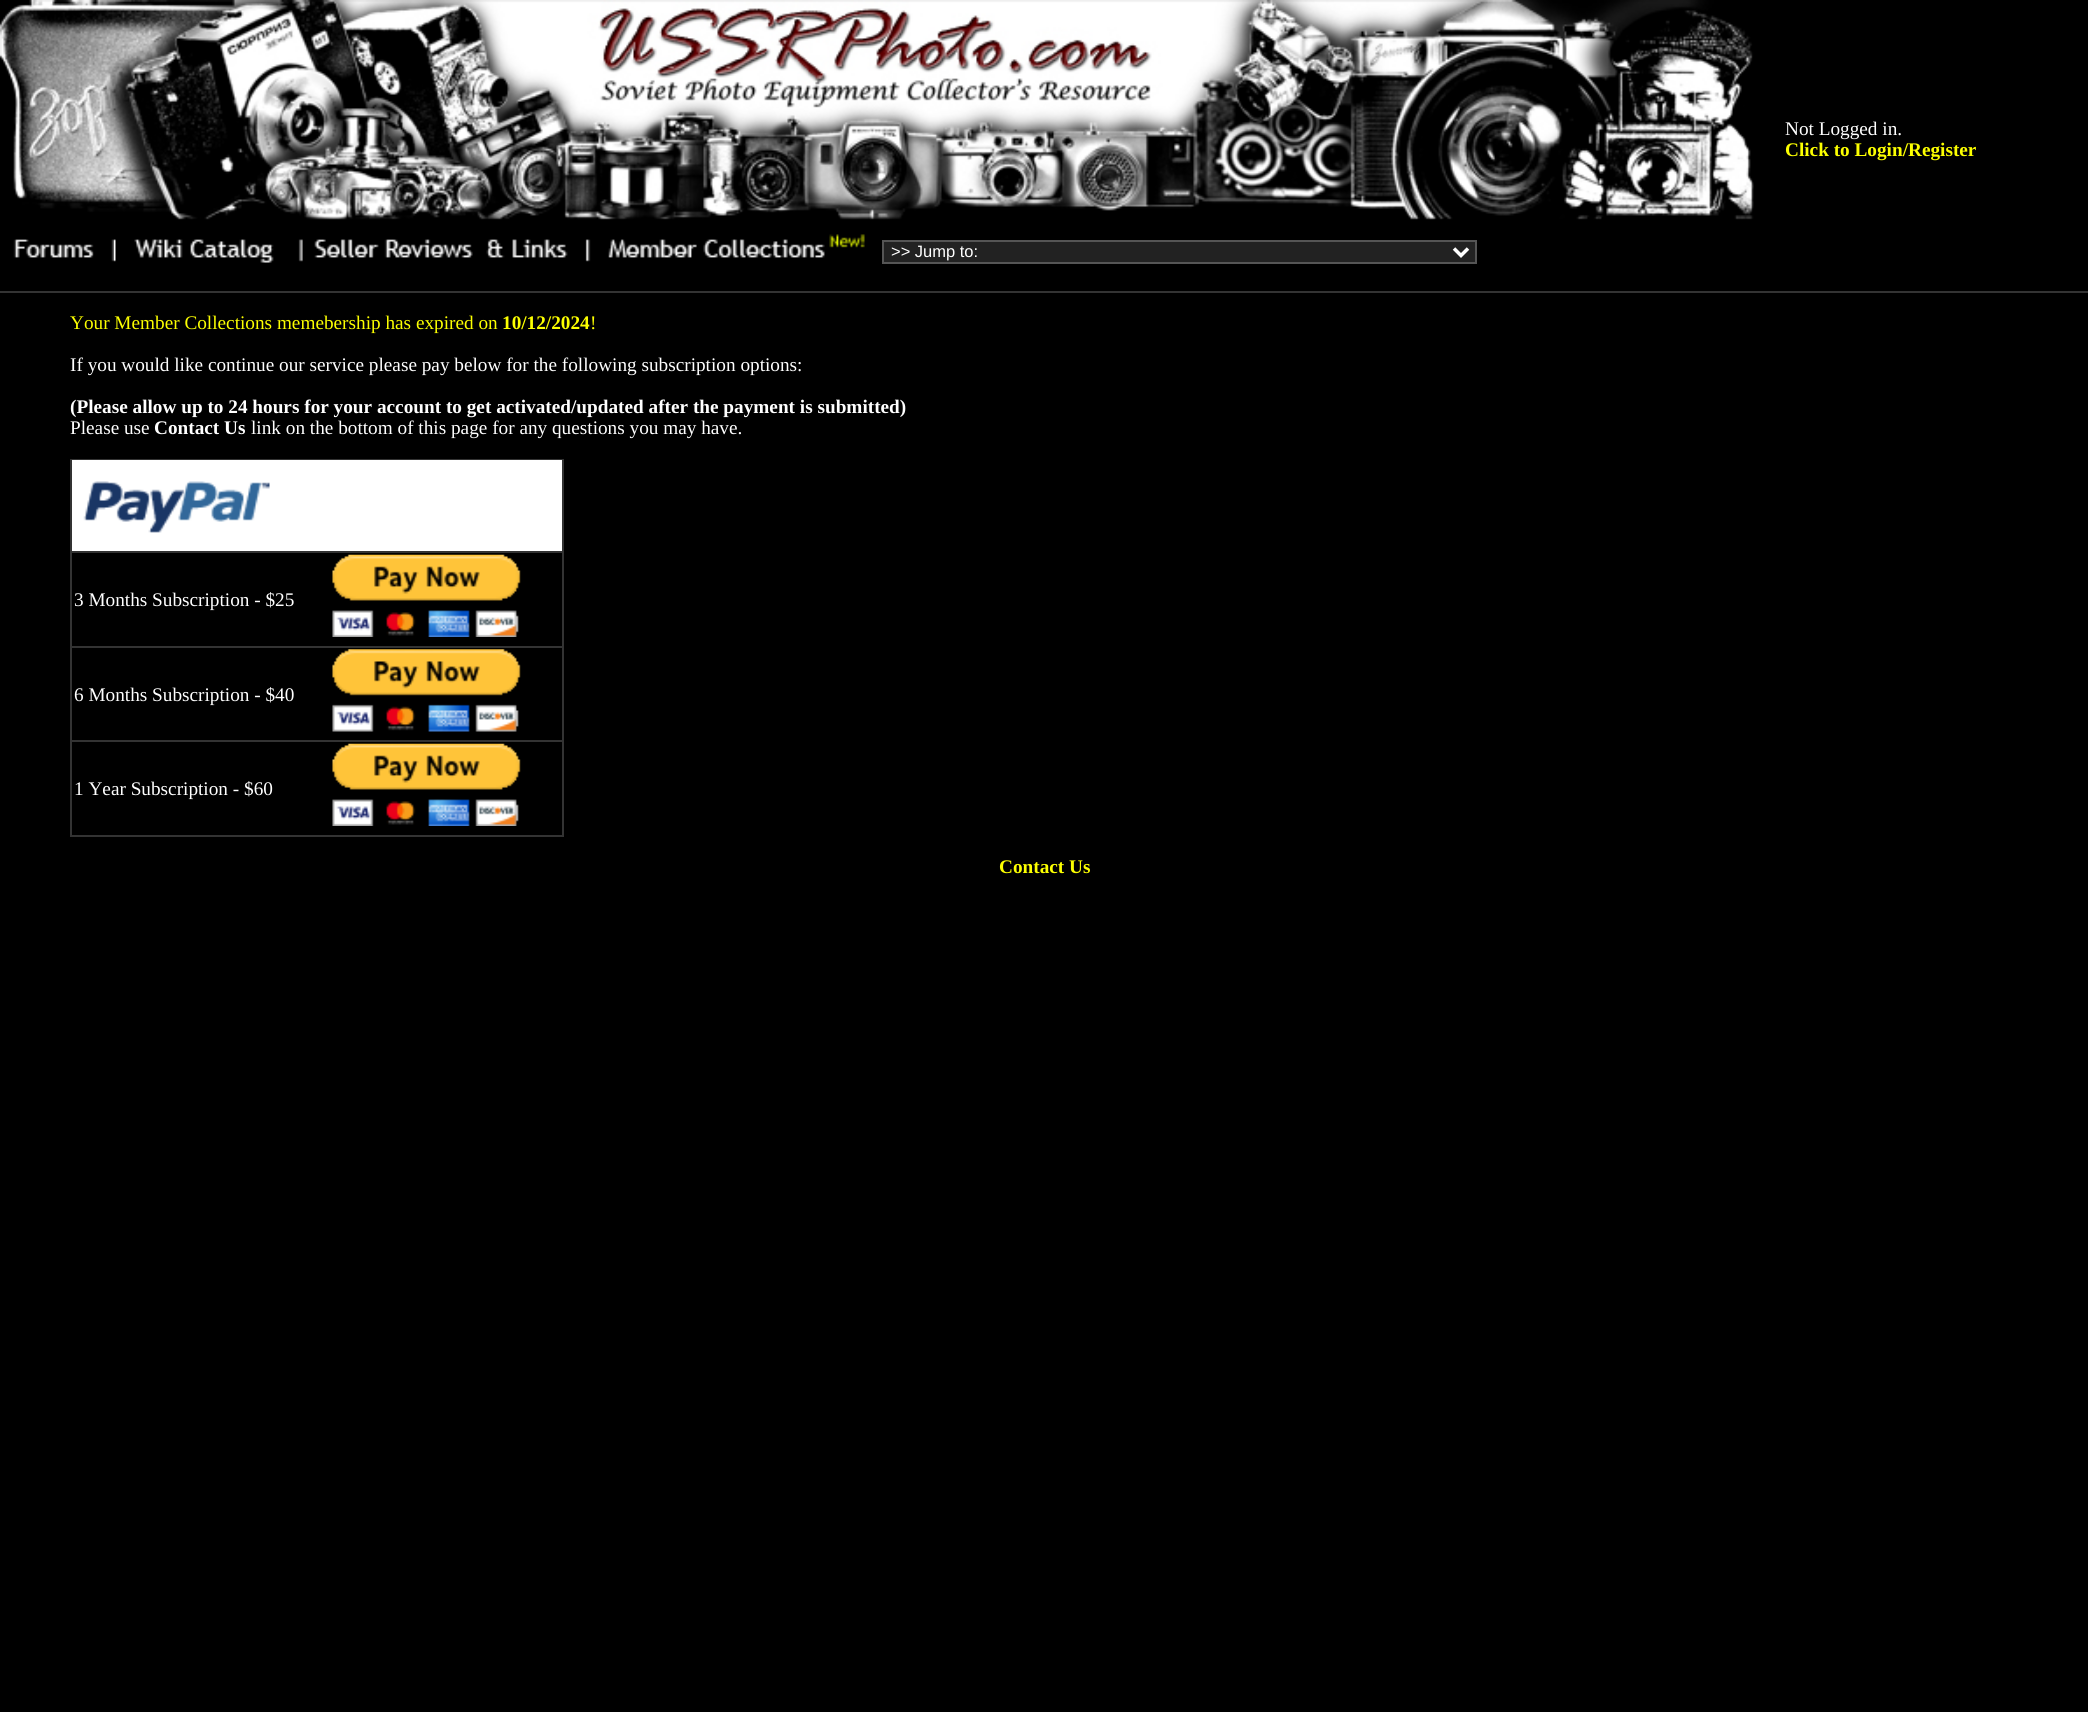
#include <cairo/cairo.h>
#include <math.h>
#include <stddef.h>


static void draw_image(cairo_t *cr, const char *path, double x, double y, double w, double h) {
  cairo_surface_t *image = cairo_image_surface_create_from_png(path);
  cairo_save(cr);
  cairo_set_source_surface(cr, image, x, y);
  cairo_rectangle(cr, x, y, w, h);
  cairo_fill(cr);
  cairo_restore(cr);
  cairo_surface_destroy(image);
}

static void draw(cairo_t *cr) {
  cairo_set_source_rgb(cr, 0, 0, 0);
  cairo_paint(cr);
  draw_image(cr, "images/1.png", 0, 0, 1754, 220);
  draw_image(cr, "images/2.png", 13, 239, 101, 23);
  draw_image(cr, "images/3.png", 113, 239, 190, 24);
  draw_image(cr, "images/4.png", 302, 239, 266, 23);
  draw_image(cr, "images/5.png", 585, 234, 280, 28);
  cairo_set_source_rgb(cr, 34 / 255.0, 34 / 255.0, 34 / 255.0);
  cairo_rectangle(cr, 883, 241, 593, 22);
  cairo_fill_preserve(cr);
  cairo_set_source_rgb(cr, 85 / 255.0, 85 / 255.0, 85 / 255.0);
  cairo_stroke(cr);
  cairo_new_path(cr);
  cairo_move_to(cr, 1454, 248.5);
  cairo_line_to(cr, 1461, 255.5);
  cairo_line_to(cr, 1468, 248.5);
  cairo_set_source_rgb(cr, 1, 1, 1);
  cairo_set_line_width(cr, 3.5);
  cairo_stroke(cr);
  cairo_set_source_rgb(cr, 51 / 255.0, 51 / 255.0, 51 / 255.0);
  cairo_rectangle(cr, 0, 291, 2088, 2);
  cairo_fill(cr);
  cairo_rectangle(cr, 70, 459, 494, 378);
  cairo_fill(cr);
  cairo_set_source_rgb(cr, 1, 1, 1);
  cairo_rectangle(cr, 72, 460, 490, 91);
  cairo_fill(cr);
  draw_image(cr, "images/6.png", 83, 481, 187, 52);
  cairo_set_source_rgb(cr, 0, 0, 0);
  cairo_rectangle(cr, 72, 553, 490, 93);
  cairo_fill(cr);
  draw_image(cr, "images/7.png", 332, 554, 189, 83);
  cairo_rectangle(cr, 72, 648, 490, 92);
  cairo_fill(cr);
  draw_image(cr, "images/8.png", 332, 649, 189, 83);
  cairo_rectangle(cr, 72, 742, 490, 93);
  cairo_fill(cr);
  draw_image(cr, "images/7.png", 332, 743, 189, 83);
  cairo_select_font_face(cr, "Liberation Serif", CAIRO_FONT_SLANT_NORMAL, CAIRO_FONT_WEIGHT_NORMAL);
  cairo_set_font_size(cr, 19.25);
  cairo_set_source_rgb(cr, 1, 1, 1);
  cairo_move_to(cr, 1785, 135);
  cairo_show_text(cr, "Not Logged in.");
  cairo_select_font_face(cr, "Liberation Serif", CAIRO_FONT_SLANT_NORMAL, CAIRO_FONT_WEIGHT_BOLD);
  cairo_set_source_rgb(cr, 252 / 255.0, 1, 0);
  cairo_move_to(cr, 1785, 156);
  cairo_show_text(cr, "Click to Login/Register");
  cairo_select_font_face(cr, "Liberation Sans", CAIRO_FONT_SLANT_NORMAL, CAIRO_FONT_WEIGHT_NORMAL);
  cairo_set_font_size(cr, 16.5);
  cairo_set_source_rgb(cr, 1, 1, 1);
  cairo_move_to(cr, 891, 257);
  cairo_show_text(cr, ">> Jump to:");
  cairo_select_font_face(cr, "Liberation Serif", CAIRO_FONT_SLANT_NORMAL, CAIRO_FONT_WEIGHT_NORMAL);
  cairo_set_font_size(cr, 19.25);
  cairo_set_source_rgb(cr, 252 / 255.0, 1, 0);
  cairo_move_to(cr, 70, 329);
  cairo_show_text(cr, "Your Member Collections memebership has expired on");
  cairo_select_font_face(cr, "Liberation Serif", CAIRO_FONT_SLANT_NORMAL, CAIRO_FONT_WEIGHT_BOLD);
  cairo_move_to(cr, 502, 329);
  cairo_show_text(cr, "10/12/2024");
  cairo_select_font_face(cr, "Liberation Serif", CAIRO_FONT_SLANT_NORMAL, CAIRO_FONT_WEIGHT_NORMAL);
  cairo_move_to(cr, 590, 329);
  cairo_show_text(cr, "!");
  cairo_set_source_rgb(cr, 1, 1, 1);
  cairo_move_to(cr, 70, 371);
  cairo_show_text(cr, "If you would like continue our service please pay below for the following subscription options:");
  cairo_select_font_face(cr, "Liberation Serif", CAIRO_FONT_SLANT_NORMAL, CAIRO_FONT_WEIGHT_BOLD);
  cairo_move_to(cr, 70, 413);
  cairo_show_text(cr, "(Please allow up to 24 hours for your account to get activated/updated after the payment is submitted)");
  cairo_select_font_face(cr, "Liberation Serif", CAIRO_FONT_SLANT_NORMAL, CAIRO_FONT_WEIGHT_NORMAL);
  cairo_move_to(cr, 70, 434);
  cairo_show_text(cr, "Please use");
  cairo_select_font_face(cr, "Liberation Serif", CAIRO_FONT_SLANT_NORMAL, CAIRO_FONT_WEIGHT_BOLD);
  cairo_move_to(cr, 154, 434);
  cairo_show_text(cr, "Contact Us");
  cairo_select_font_face(cr, "Liberation Serif", CAIRO_FONT_SLANT_NORMAL, CAIRO_FONT_WEIGHT_NORMAL);
  cairo_move_to(cr, 251, 434);
  cairo_show_text(cr, "link on the bottom of this page for any questions you may have.");
  cairo_move_to(cr, 74, 606);
  cairo_show_text(cr, "3 Months Subscription - $25");
  cairo_move_to(cr, 74, 701);
  cairo_show_text(cr, "6 Months Subscription - $40");
  cairo_move_to(cr, 74, 795);
  cairo_show_text(cr, "1 Year Subscription - $60");
  cairo_select_font_face(cr, "Liberation Serif", CAIRO_FONT_SLANT_NORMAL, CAIRO_FONT_WEIGHT_BOLD);
  cairo_set_source_rgb(cr, 252 / 255.0, 1, 0);
  cairo_move_to(cr, 999, 873);
  cairo_show_text(cr, "Contact Us");
}

int main(void) {
  cairo_surface_t *surface = cairo_image_surface_create(CAIRO_FORMAT_RGB24, 2088, 1712);
  cairo_t *cr = cairo_create(surface);
  cairo_font_options_t *options = cairo_font_options_create();
  cairo_font_options_set_hint_metrics(options, CAIRO_HINT_METRICS_OFF);
  cairo_font_options_set_hint_style(options, CAIRO_HINT_STYLE_NONE);
  cairo_set_font_options(cr, options);
  cairo_set_miter_limit(cr, 4);
  draw(cr);
  cairo_surface_write_to_png(surface, "out.png");
  cairo_font_options_destroy(options);
  cairo_destroy(cr);
  cairo_surface_destroy(surface);
  return 0;
}
